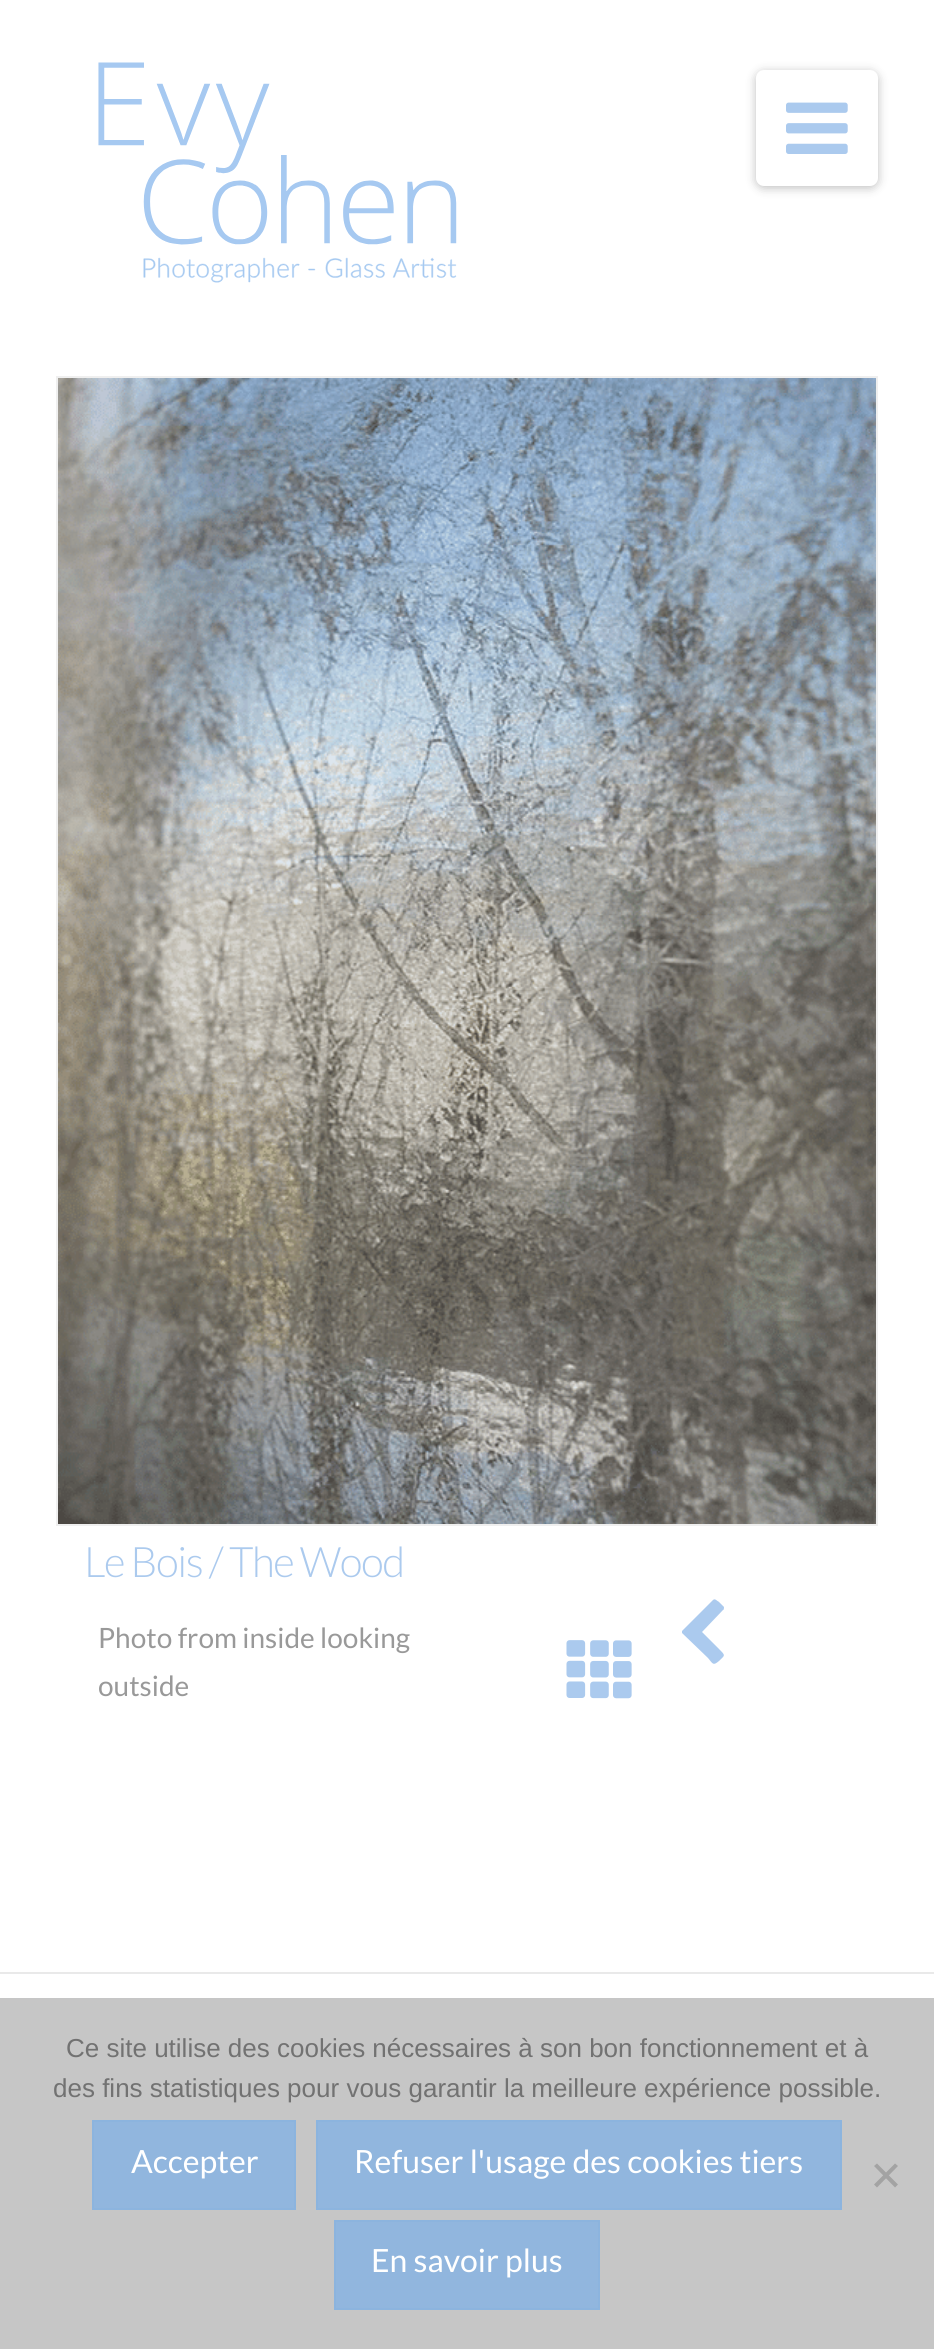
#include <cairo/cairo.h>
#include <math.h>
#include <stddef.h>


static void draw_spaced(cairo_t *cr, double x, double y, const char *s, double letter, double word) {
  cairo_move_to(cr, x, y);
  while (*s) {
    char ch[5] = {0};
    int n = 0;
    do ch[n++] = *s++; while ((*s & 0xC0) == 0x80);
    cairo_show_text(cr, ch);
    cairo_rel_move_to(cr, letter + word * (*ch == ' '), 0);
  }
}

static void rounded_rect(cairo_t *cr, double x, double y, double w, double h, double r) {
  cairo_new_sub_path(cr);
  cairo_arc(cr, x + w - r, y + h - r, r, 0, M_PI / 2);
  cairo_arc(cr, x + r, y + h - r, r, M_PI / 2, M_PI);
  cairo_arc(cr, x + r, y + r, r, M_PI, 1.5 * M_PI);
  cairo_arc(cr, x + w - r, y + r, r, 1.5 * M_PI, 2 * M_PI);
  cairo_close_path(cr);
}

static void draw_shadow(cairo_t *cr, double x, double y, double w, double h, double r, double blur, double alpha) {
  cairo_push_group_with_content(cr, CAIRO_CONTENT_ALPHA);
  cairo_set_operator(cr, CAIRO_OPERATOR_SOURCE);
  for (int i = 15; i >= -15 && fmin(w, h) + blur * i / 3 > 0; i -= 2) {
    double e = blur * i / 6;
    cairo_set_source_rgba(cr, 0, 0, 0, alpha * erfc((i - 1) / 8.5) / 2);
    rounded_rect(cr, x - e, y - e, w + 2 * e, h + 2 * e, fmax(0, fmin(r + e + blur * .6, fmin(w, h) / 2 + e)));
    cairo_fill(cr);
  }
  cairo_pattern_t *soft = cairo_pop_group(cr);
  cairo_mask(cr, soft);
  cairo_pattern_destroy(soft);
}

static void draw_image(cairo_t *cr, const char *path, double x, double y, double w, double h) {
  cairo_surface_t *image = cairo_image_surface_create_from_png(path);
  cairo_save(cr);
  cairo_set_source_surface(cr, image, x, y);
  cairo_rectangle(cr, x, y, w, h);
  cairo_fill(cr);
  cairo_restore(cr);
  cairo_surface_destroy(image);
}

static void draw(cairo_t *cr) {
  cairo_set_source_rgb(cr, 1, 1, 1);
  cairo_paint(cr);
  draw_image(cr, "images/1.png", 98, 62, 359, 221);
  cairo_set_source_rgb(cr, 0, 0, 0);
  draw_shadow(cr, 756, 72, 122, 116, 8, 5, 0.25);
  cairo_set_source_rgb(cr, 1, 1, 1);
  rounded_rect(cr, 756, 70, 122, 116, 8);
  cairo_fill(cr);
  draw_image(cr, "images/2.png", 786, 102, 62, 52);
  cairo_rectangle(cr, 57, 377, 820, 1148);
  cairo_set_source_rgb(cr, 239 / 255.0, 239 / 255.0, 239 / 255.0);
  cairo_stroke(cr);
  draw_image(cr, "images/3.png", 58, 378, 818, 1146);
  draw_image(cr, "images/4.png", 566, 1640, 66, 59);
  cairo_set_source_rgb(cr, 171 / 255.0, 202 / 255.0, 238 / 255.0);
  cairo_new_path(cr);
  cairo_move_to(cr, 723, 1610);
  cairo_line_to(cr, 702, 1632);
  cairo_line_to(cr, 719, 1649);
  cairo_curve_to(cr, 726, 1656, 725, 1655, 719, 1661);
  cairo_curve_to(cr, 713, 1666, 713, 1664, 708, 1658);
  cairo_line_to(cr, 682, 1633);
  cairo_line_to(cr, 682, 1631);
  cairo_line_to(cr, 713, 1600);
  cairo_curve_to(cr, 715, 1598, 717, 1601, 719, 1602);
  cairo_line_to(cr, 724, 1607);
  cairo_curve_to(cr, 724, 1608, 724, 1610, 723, 1610);
  cairo_close_path(cr);
  cairo_fill(cr);
  cairo_set_source_rgb(cr, 233 / 255.0, 233 / 255.0, 233 / 255.0);
  cairo_rectangle(cr, 0, 1972, 934, 2);
  cairo_fill(cr);
  cairo_set_source_rgb(cr, 198 / 255.0, 198 / 255.0, 198 / 255.0);
  cairo_rectangle(cr, 0, 1998, 934, 351);
  cairo_fill(cr);
  cairo_set_source_rgb(cr, 145 / 255.0, 182 / 255.0, 222 / 255.0);
  cairo_rectangle(cr, 93, 2121, 202, 88);
  cairo_fill_preserve(cr);
  cairo_set_source_rgb(cr, 140 / 255.0, 180 / 255.0, 222 / 255.0);
  cairo_stroke(cr);
  cairo_set_source_rgb(cr, 145 / 255.0, 182 / 255.0, 222 / 255.0);
  cairo_rectangle(cr, 317, 2121, 524, 88);
  cairo_fill_preserve(cr);
  cairo_set_source_rgb(cr, 140 / 255.0, 180 / 255.0, 222 / 255.0);
  cairo_stroke(cr);
  cairo_set_source_rgb(cr, 145 / 255.0, 182 / 255.0, 222 / 255.0);
  cairo_rectangle(cr, 335, 2221, 264, 88);
  cairo_fill_preserve(cr);
  cairo_set_source_rgb(cr, 140 / 255.0, 180 / 255.0, 222 / 255.0);
  cairo_stroke(cr);
  cairo_set_source_rgb(cr, 163 / 255.0, 163 / 255.0, 163 / 255.0);
  cairo_new_path(cr);
  cairo_move_to(cr, 895, 2163.5);
  cairo_line_to(cr, 898, 2166);
  cairo_line_to(cr, 877, 2187.5);
  cairo_line_to(cr, 874, 2184.5);
  cairo_close_path(cr);
  cairo_fill(cr);
  cairo_new_path(cr);
  cairo_move_to(cr, 874, 2166);
  cairo_line_to(cr, 877, 2163.5);
  cairo_line_to(cr, 898, 2184.5);
  cairo_line_to(cr, 895, 2187.5);
  cairo_close_path(cr);
  cairo_fill(cr);
  cairo_select_font_face(cr, "Lato Light", CAIRO_FONT_SLANT_NORMAL, CAIRO_FONT_WEIGHT_NORMAL);
  cairo_set_font_size(cr, 42);
  cairo_set_source_rgb(cr, 171 / 255.0, 202 / 255.0, 238 / 255.0);
  draw_spaced(cr, 84, 1577, "Le Bois / The Wood", -1.5, 0);
  cairo_select_font_face(cr, "Lato", CAIRO_FONT_SLANT_NORMAL, CAIRO_FONT_WEIGHT_NORMAL);
  cairo_set_font_size(cr, 28);
  cairo_set_source_rgb(cr, 153 / 255.0, 153 / 255.0, 153 / 255.0);
  cairo_move_to(cr, 98, 1648);
  cairo_show_text(cr, "Photo from inside looking");
  cairo_move_to(cr, 98, 1696);
  cairo_show_text(cr, "outside");
  cairo_select_font_face(cr, "Liberation Sans", CAIRO_FONT_SLANT_NORMAL, CAIRO_FONT_WEIGHT_NORMAL);
  cairo_set_font_size(cr, 26);
  cairo_set_source_rgb(cr, 114 / 255.0, 114 / 255.0, 114 / 255.0);
  cairo_move_to(cr, 66, 2057);
  cairo_show_text(cr, "Ce site utilise des cookies nécessaires à son bon fonctionnement et à");
  cairo_move_to(cr, 53, 2097);
  cairo_show_text(cr, "des fins statistiques pour vous garantir la meilleure expérience possible.");
  cairo_select_font_face(cr, "Lato", CAIRO_FONT_SLANT_NORMAL, CAIRO_FONT_WEIGHT_NORMAL);
  cairo_set_font_size(cr, 32);
  cairo_set_source_rgb(cr, 1, 1, 1);
  cairo_move_to(cr, 131, 2173);
  cairo_show_text(cr, "Accepter");
  cairo_move_to(cr, 354, 2173);
  cairo_show_text(cr, "Refuser l'usage des cookies tiers");
  cairo_move_to(cr, 371, 2272);
  cairo_show_text(cr, "En savoir plus");
}

int main(void) {
  cairo_surface_t *surface = cairo_image_surface_create(CAIRO_FORMAT_RGB24, 934, 2349);
  cairo_t *cr = cairo_create(surface);
  cairo_font_options_t *options = cairo_font_options_create();
  cairo_font_options_set_hint_metrics(options, CAIRO_HINT_METRICS_OFF);
  cairo_font_options_set_hint_style(options, CAIRO_HINT_STYLE_NONE);
  cairo_set_font_options(cr, options);
  cairo_set_miter_limit(cr, 4);
  draw(cr);
  cairo_surface_write_to_png(surface, "out.png");
  cairo_font_options_destroy(options);
  cairo_destroy(cr);
  cairo_surface_destroy(surface);
  return 0;
}
